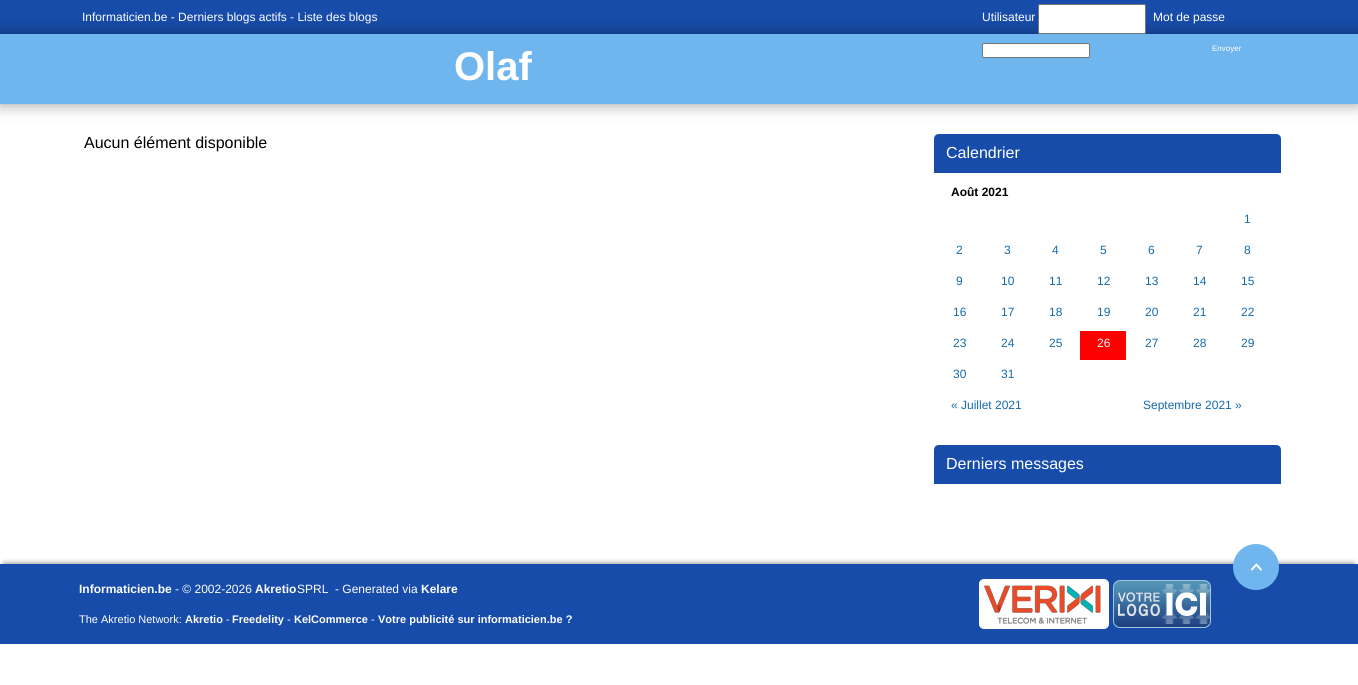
#include <cairo/cairo.h>
#include <math.h>
#include <stddef.h>


static void rounded_rect(cairo_t *cr, double x, double y, double w, double h, double r) {
  cairo_new_sub_path(cr);
  cairo_arc(cr, x + w - r, y + h - r, r, 0, M_PI / 2);
  cairo_arc(cr, x + r, y + h - r, r, M_PI / 2, M_PI);
  cairo_arc(cr, x + r, y + r, r, M_PI, 1.5 * M_PI);
  cairo_arc(cr, x + w - r, y + r, r, 1.5 * M_PI, 2 * M_PI);
  cairo_close_path(cr);
}

static void draw_shadow(cairo_t *cr, double x, double y, double w, double h, double r, double blur, double alpha) {
  cairo_push_group_with_content(cr, CAIRO_CONTENT_ALPHA);
  cairo_set_operator(cr, CAIRO_OPERATOR_SOURCE);
  for (int i = 15; i >= -15 && fmin(w, h) + blur * i / 3 > 0; i -= 2) {
    double e = blur * i / 6;
    cairo_set_source_rgba(cr, 0, 0, 0, alpha * erfc((i - 1) / 8.5) / 2);
    rounded_rect(cr, x - e, y - e, w + 2 * e, h + 2 * e, fmax(0, fmin(r + e + blur * .6, fmin(w, h) / 2 + e)));
    cairo_fill(cr);
  }
  cairo_pattern_t *soft = cairo_pop_group(cr);
  cairo_mask(cr, soft);
  cairo_pattern_destroy(soft);
}

static void draw_image(cairo_t *cr, const char *path, double x, double y, double w, double h) {
  cairo_surface_t *image = cairo_image_surface_create_from_png(path);
  cairo_save(cr);
  cairo_set_source_surface(cr, image, x, y);
  cairo_rectangle(cr, x, y, w, h);
  cairo_fill(cr);
  cairo_restore(cr);
  cairo_surface_destroy(image);
}

static void draw(cairo_t *cr) {
  cairo_set_source_rgb(cr, 1, 1, 1);
  cairo_paint(cr);
  cairo_set_source_rgb(cr, 23 / 255.0, 76 / 255.0, 170 / 255.0);
  cairo_rectangle(cr, 0, 0, 1358, 34);
  cairo_fill(cr);
  cairo_set_source_rgb(cr, 0, 0, 0);
  draw_shadow(cr, 0, 34, 1358, 70, 0, 8, 0.4);
  cairo_set_source_rgb(cr, 1, 1, 1);
  rounded_rect(cr, 1038.5, 4.5, 107, 29, 1.5);
  cairo_fill_preserve(cr);
  cairo_set_source_rgb(cr, 118 / 255.0, 118 / 255.0, 118 / 255.0);
  cairo_set_line_width(cr, 1);
  cairo_stroke(cr);
  cairo_set_source_rgb(cr, 111 / 255.0, 182 / 255.0, 238 / 255.0);
  cairo_rectangle(cr, 0, 34, 1358, 70);
  cairo_fill(cr);
  cairo_set_source_rgb(cr, 1, 1, 1);
  rounded_rect(cr, 982.5, 43.5, 107, 14, 1.5);
  cairo_fill_preserve(cr);
  cairo_set_source_rgb(cr, 118 / 255.0, 118 / 255.0, 118 / 255.0);
  cairo_stroke(cr);
  cairo_set_source_rgb(cr, 23 / 255.0, 76 / 255.0, 170 / 255.0);
  cairo_new_path(cr);
  cairo_move_to(cr, 939, 134);
  cairo_line_to(cr, 1276, 134);
  cairo_curve_to(cr, 1279, 134, 1281, 136, 1281, 139);
  cairo_line_to(cr, 1281, 173);
  cairo_line_to(cr, 934, 173);
  cairo_line_to(cr, 934, 139);
  cairo_curve_to(cr, 934, 136, 936, 134, 939, 134);
  cairo_close_path(cr);
  cairo_fill(cr);
  cairo_set_source_rgb(cr, 1, 0, 0);
  cairo_rectangle(cr, 1080, 331, 46, 29);
  cairo_fill(cr);
  cairo_set_source_rgb(cr, 23 / 255.0, 76 / 255.0, 170 / 255.0);
  cairo_new_path(cr);
  cairo_move_to(cr, 939, 445);
  cairo_line_to(cr, 1276, 445);
  cairo_curve_to(cr, 1279, 445, 1281, 447, 1281, 450);
  cairo_line_to(cr, 1281, 484);
  cairo_line_to(cr, 934, 484);
  cairo_line_to(cr, 934, 450);
  cairo_curve_to(cr, 934, 447, 936, 445, 939, 445);
  cairo_close_path(cr);
  cairo_fill(cr);
  cairo_set_source_rgb(cr, 0, 0, 0);
  draw_shadow(cr, 4, 563, 1350, 72, 0, 2.5, 0.4);
  cairo_set_source_rgb(cr, 23 / 255.0, 76 / 255.0, 170 / 255.0);
  cairo_rectangle(cr, 0, 564, 1358, 80);
  cairo_fill(cr);
  draw_image(cr, "images/1.png", 1233, 544, 46, 46);
  cairo_set_source_rgb(cr, 1, 1, 1);
  rounded_rect(cr, 979, 579, 130, 50, 5);
  cairo_fill(cr);
  draw_image(cr, "images/2.png", 1113, 580, 98, 48);
  draw_image(cr, "images/3.png", 984, 585, 117, 39);
  cairo_select_font_face(cr, "Liberation Sans", CAIRO_FONT_SLANT_NORMAL, CAIRO_FONT_WEIGHT_NORMAL);
  cairo_set_font_size(cr, 12);
  cairo_move_to(cr, 82, 21);
  cairo_show_text(cr, "Informaticien.be - Derniers blogs actifs - Liste des blogs");
  cairo_move_to(cr, 982, 21);
  cairo_show_text(cr, "Utilisateur");
  cairo_move_to(cr, 1153, 21);
  cairo_show_text(cr, "Mot de passe");
  cairo_set_font_size(cr, 8);
  cairo_move_to(cr, 1212, 51);
  cairo_show_text(cr, "Envoyer");
  cairo_select_font_face(cr, "Liberation Sans", CAIRO_FONT_SLANT_NORMAL, CAIRO_FONT_WEIGHT_BOLD);
  cairo_set_font_size(cr, 40);
  cairo_move_to(cr, 454, 80);
  cairo_show_text(cr, "Olaf");
  cairo_select_font_face(cr, "Liberation Sans", CAIRO_FONT_SLANT_NORMAL, CAIRO_FONT_WEIGHT_NORMAL);
  cairo_set_font_size(cr, 16);
  cairo_set_source_rgb(cr, 0, 0, 0);
  cairo_move_to(cr, 84, 148);
  cairo_show_text(cr, "Aucun élément disponible");
  cairo_set_source_rgb(cr, 1, 1, 1);
  cairo_move_to(cr, 946, 158);
  cairo_show_text(cr, "Calendrier");
  cairo_select_font_face(cr, "Liberation Sans", CAIRO_FONT_SLANT_NORMAL, CAIRO_FONT_WEIGHT_BOLD);
  cairo_set_font_size(cr, 12);
  cairo_set_source_rgb(cr, 0, 0, 0);
  cairo_move_to(cr, 951, 196);
  cairo_show_text(cr, "Août 2021");
  cairo_select_font_face(cr, "Liberation Sans", CAIRO_FONT_SLANT_NORMAL, CAIRO_FONT_WEIGHT_NORMAL);
  cairo_set_source_rgb(cr, 20 / 255.0, 106 / 255.0, 172 / 255.0);
  cairo_move_to(cr, 1244, 223);
  cairo_show_text(cr, "1");
  cairo_move_to(cr, 956, 254);
  cairo_show_text(cr, "2");
  cairo_move_to(cr, 1004, 254);
  cairo_show_text(cr, "3");
  cairo_move_to(cr, 1052, 254);
  cairo_show_text(cr, "4");
  cairo_move_to(cr, 1100, 254);
  cairo_show_text(cr, "5");
  cairo_move_to(cr, 1148, 254);
  cairo_show_text(cr, "6");
  cairo_move_to(cr, 1196, 254);
  cairo_show_text(cr, "7");
  cairo_move_to(cr, 1244, 254);
  cairo_show_text(cr, "8");
  cairo_move_to(cr, 956, 285);
  cairo_show_text(cr, "9");
  cairo_move_to(cr, 1001, 285);
  cairo_show_text(cr, "10");
  cairo_move_to(cr, 1049, 285);
  cairo_show_text(cr, "11");
  cairo_move_to(cr, 1097, 285);
  cairo_show_text(cr, "12");
  cairo_move_to(cr, 1145, 285);
  cairo_show_text(cr, "13");
  cairo_move_to(cr, 1193, 285);
  cairo_show_text(cr, "14");
  cairo_move_to(cr, 1241, 285);
  cairo_show_text(cr, "15");
  cairo_move_to(cr, 953, 316);
  cairo_show_text(cr, "16");
  cairo_move_to(cr, 1001, 316);
  cairo_show_text(cr, "17");
  cairo_move_to(cr, 1049, 316);
  cairo_show_text(cr, "18");
  cairo_move_to(cr, 1097, 316);
  cairo_show_text(cr, "19");
  cairo_move_to(cr, 1145, 316);
  cairo_show_text(cr, "20");
  cairo_move_to(cr, 1193, 316);
  cairo_show_text(cr, "21");
  cairo_move_to(cr, 1241, 316);
  cairo_show_text(cr, "22");
  cairo_move_to(cr, 953, 347);
  cairo_show_text(cr, "23");
  cairo_move_to(cr, 1001, 347);
  cairo_show_text(cr, "24");
  cairo_move_to(cr, 1049, 347);
  cairo_show_text(cr, "25");
  cairo_set_source_rgb(cr, 1, 1, 1);
  cairo_move_to(cr, 1097, 347);
  cairo_show_text(cr, "26");
  cairo_set_source_rgb(cr, 20 / 255.0, 106 / 255.0, 172 / 255.0);
  cairo_move_to(cr, 1145, 347);
  cairo_show_text(cr, "27");
  cairo_move_to(cr, 1193, 347);
  cairo_show_text(cr, "28");
  cairo_move_to(cr, 1241, 347);
  cairo_show_text(cr, "29");
  cairo_move_to(cr, 953, 378);
  cairo_show_text(cr, "30");
  cairo_move_to(cr, 1001, 378);
  cairo_show_text(cr, "31");
  cairo_move_to(cr, 951, 409);
  cairo_show_text(cr, "« Juillet 2021");
  cairo_move_to(cr, 1143, 409);
  cairo_show_text(cr, "Septembre 2021 »");
  cairo_set_font_size(cr, 16);
  cairo_set_source_rgb(cr, 1, 1, 1);
  cairo_move_to(cr, 946, 469);
  cairo_show_text(cr, "Derniers messages");
  cairo_select_font_face(cr, "Liberation Sans", CAIRO_FONT_SLANT_NORMAL, CAIRO_FONT_WEIGHT_BOLD);
  cairo_set_font_size(cr, 12);
  cairo_move_to(cr, 79, 593);
  cairo_show_text(cr, "Informaticien.be");
  cairo_select_font_face(cr, "Liberation Sans", CAIRO_FONT_SLANT_NORMAL, CAIRO_FONT_WEIGHT_NORMAL);
  cairo_move_to(cr, 175, 593);
  cairo_show_text(cr, "- © 2002-2026");
  cairo_select_font_face(cr, "Liberation Sans", CAIRO_FONT_SLANT_NORMAL, CAIRO_FONT_WEIGHT_BOLD);
  cairo_move_to(cr, 255, 593);
  cairo_show_text(cr, "Akretio");
  cairo_select_font_face(cr, "Liberation Sans", CAIRO_FONT_SLANT_NORMAL, CAIRO_FONT_WEIGHT_NORMAL);
  cairo_move_to(cr, 297, 593);
  cairo_show_text(cr, "SPRL");
  cairo_move_to(cr, 335, 593);
  cairo_show_text(cr, "- Generated via");
  cairo_select_font_face(cr, "Liberation Sans", CAIRO_FONT_SLANT_NORMAL, CAIRO_FONT_WEIGHT_BOLD);
  cairo_move_to(cr, 421, 593);
  cairo_show_text(cr, "Kelare");
  cairo_select_font_face(cr, "Liberation Sans", CAIRO_FONT_SLANT_NORMAL, CAIRO_FONT_WEIGHT_NORMAL);
  cairo_set_font_size(cr, 11);
  cairo_move_to(cr, 79, 623);
  cairo_show_text(cr, "The Akretio Network:");
  cairo_select_font_face(cr, "Liberation Sans", CAIRO_FONT_SLANT_NORMAL, CAIRO_FONT_WEIGHT_BOLD);
  cairo_move_to(cr, 185, 623);
  cairo_show_text(cr, "Akretio");
  cairo_select_font_face(cr, "Liberation Sans", CAIRO_FONT_SLANT_NORMAL, CAIRO_FONT_WEIGHT_NORMAL);
  cairo_move_to(cr, 226, 623);
  cairo_show_text(cr, "-");
  cairo_select_font_face(cr, "Liberation Sans", CAIRO_FONT_SLANT_NORMAL, CAIRO_FONT_WEIGHT_BOLD);
  cairo_move_to(cr, 232, 623);
  cairo_show_text(cr, "Freedelity");
  cairo_select_font_face(cr, "Liberation Sans", CAIRO_FONT_SLANT_NORMAL, CAIRO_FONT_WEIGHT_NORMAL);
  cairo_move_to(cr, 287, 623);
  cairo_show_text(cr, "-");
  cairo_select_font_face(cr, "Liberation Sans", CAIRO_FONT_SLANT_NORMAL, CAIRO_FONT_WEIGHT_BOLD);
  cairo_move_to(cr, 294, 623);
  cairo_show_text(cr, "KelCommerce");
  cairo_select_font_face(cr, "Liberation Sans", CAIRO_FONT_SLANT_NORMAL, CAIRO_FONT_WEIGHT_NORMAL);
  cairo_move_to(cr, 371, 623);
  cairo_show_text(cr, "-");
  cairo_select_font_face(cr, "Liberation Sans", CAIRO_FONT_SLANT_NORMAL, CAIRO_FONT_WEIGHT_BOLD);
  cairo_move_to(cr, 378, 623);
  cairo_show_text(cr, "Votre publicité sur informaticien.be ?");
}

int main(void) {
  cairo_surface_t *surface = cairo_image_surface_create(CAIRO_FORMAT_RGB24, 1358, 685);
  cairo_t *cr = cairo_create(surface);
  cairo_font_options_t *options = cairo_font_options_create();
  cairo_font_options_set_hint_metrics(options, CAIRO_HINT_METRICS_OFF);
  cairo_font_options_set_hint_style(options, CAIRO_HINT_STYLE_NONE);
  cairo_set_font_options(cr, options);
  cairo_set_miter_limit(cr, 4);
  draw(cr);
  cairo_surface_write_to_png(surface, "out.png");
  cairo_font_options_destroy(options);
  cairo_destroy(cr);
  cairo_surface_destroy(surface);
  return 0;
}
